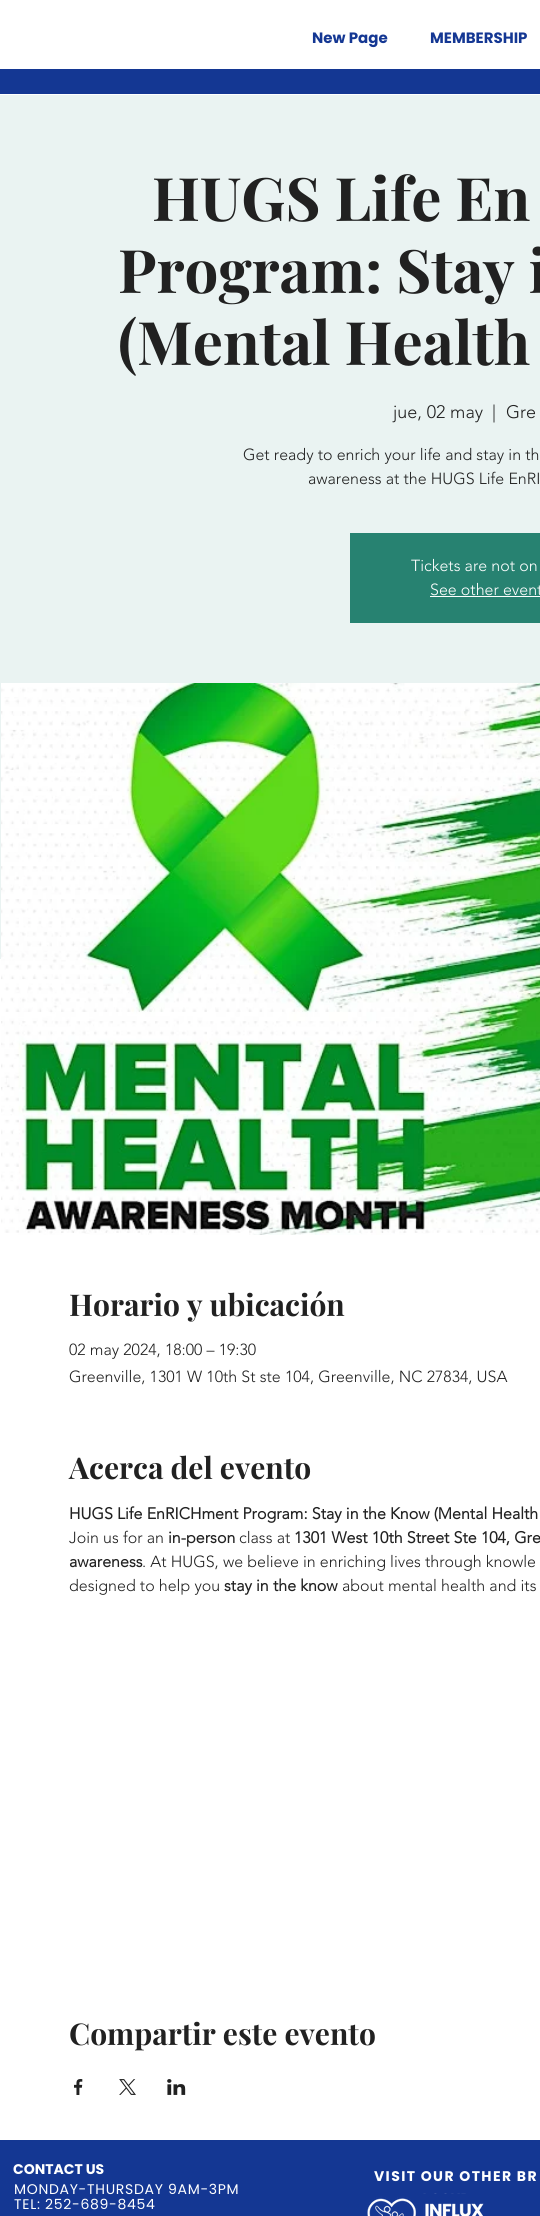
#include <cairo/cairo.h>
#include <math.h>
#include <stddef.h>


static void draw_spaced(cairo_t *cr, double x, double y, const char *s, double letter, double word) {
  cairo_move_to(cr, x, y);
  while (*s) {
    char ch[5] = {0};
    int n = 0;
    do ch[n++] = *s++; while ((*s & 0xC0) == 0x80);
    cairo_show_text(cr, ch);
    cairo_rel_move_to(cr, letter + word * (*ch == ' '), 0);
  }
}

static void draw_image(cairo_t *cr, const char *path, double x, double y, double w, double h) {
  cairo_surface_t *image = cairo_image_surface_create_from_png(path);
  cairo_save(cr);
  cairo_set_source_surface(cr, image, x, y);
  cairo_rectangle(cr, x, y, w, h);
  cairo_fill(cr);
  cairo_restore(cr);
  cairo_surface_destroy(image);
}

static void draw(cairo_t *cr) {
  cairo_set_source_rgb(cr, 1, 1, 1);
  cairo_paint(cr);
  cairo_set_source_rgb(cr, 20 / 255.0, 55 / 255.0, 147 / 255.0);
  cairo_rectangle(cr, 0, 69, 540, 25);
  cairo_fill(cr);
  cairo_set_source_rgb(cr, 234 / 255.0, 243 / 255.0, 242 / 255.0);
  cairo_rectangle(cr, 0, 95, 540, 864);
  cairo_fill(cr);
  cairo_set_source_rgb(cr, 39 / 255.0, 130 / 255.0, 113 / 255.0);
  cairo_rectangle(cr, 350, 533, 190, 90);
  cairo_fill(cr);
  cairo_set_source_rgb(cr, 1, 1, 1);
  cairo_rectangle(cr, 430, 596, 110, 1);
  cairo_fill(cr);
  draw_image(cr, "images/1.png", 1, 683, 539, 552);
  draw_image(cr, "images/2.png", 74, 2079, 9, 16);
  draw_image(cr, "images/3.png", 119, 2079, 17, 16);
  draw_image(cr, "images/4.png", 167, 2079, 19, 16);
  cairo_set_source_rgb(cr, 20 / 255.0, 55 / 255.0, 147 / 255.0);
  cairo_rectangle(cr, 0, 2140, 540, 76);
  cairo_fill(cr);
  draw_image(cr, "images/5.png", 367, 2193, 117, 23);
  cairo_select_font_face(cr, "Poppins", CAIRO_FONT_SLANT_NORMAL, CAIRO_FONT_WEIGHT_BOLD);
  cairo_set_font_size(cr, 15);
  cairo_move_to(cr, 312, 43);
  cairo_show_text(cr, "New Page");
  cairo_move_to(cr, 430, 43);
  cairo_show_text(cr, "MEMBERSHIP");
  cairo_select_font_face(cr, "Playfair Display", CAIRO_FONT_SLANT_NORMAL, CAIRO_FONT_WEIGHT_BOLD);
  cairo_set_font_size(cr, 60);
  cairo_set_source_rgb(cr, 33 / 255.0, 33 / 255.0, 33 / 255.0);
  cairo_move_to(cr, 152, 221);
  cairo_show_text(cr, "HUGS Life En");
  cairo_move_to(cr, 118, 293);
  cairo_show_text(cr, "Program: Stay i");
  cairo_move_to(cr, 118, 365);
  cairo_show_text(cr, "(Mental Health");
  cairo_select_font_face(cr, "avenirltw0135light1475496 Light", CAIRO_FONT_SLANT_NORMAL, CAIRO_FONT_WEIGHT_NORMAL);
  cairo_set_font_size(cr, 18);
  cairo_move_to(cr, 393, 418);
  cairo_show_text(cr, "jue, 02 may");
  cairo_move_to(cr, 492, 418);
  cairo_show_text(cr, "|");
  cairo_move_to(cr, 506, 418);
  cairo_show_text(cr, "Gre");
  cairo_set_font_size(cr, 16);
  cairo_move_to(cr, 243, 460);
  cairo_show_text(cr, "Get ready to enrich your life and stay in th");
  cairo_move_to(cr, 308, 484);
  cairo_show_text(cr, "awareness at the HUGS Life EnRI");
  cairo_set_source_rgb(cr, 1, 1, 1);
  cairo_move_to(cr, 411, 571);
  cairo_show_text(cr, "Tickets are not on");
  cairo_move_to(cr, 430, 595);
  cairo_show_text(cr, "See other event");
  cairo_select_font_face(cr, "Playfair Display", CAIRO_FONT_SLANT_NORMAL, CAIRO_FONT_WEIGHT_BOLD);
  cairo_set_font_size(cr, 30);
  cairo_set_source_rgb(cr, 33 / 255.0, 33 / 255.0, 33 / 255.0);
  cairo_move_to(cr, 69, 1316);
  cairo_show_text(cr, "Horario y ubicación");
  cairo_select_font_face(cr, "avenirltw0135light1475496 Light", CAIRO_FONT_SLANT_NORMAL, CAIRO_FONT_WEIGHT_NORMAL);
  cairo_set_font_size(cr, 16);
  cairo_move_to(cr, 69, 1355);
  cairo_show_text(cr, "02 may 2024, 18:00 – 19:30");
  cairo_move_to(cr, 69, 1382);
  cairo_show_text(cr, "Greenville, 1301 W 10th St ste 104, Greenville, NC 27834, USA");
  cairo_select_font_face(cr, "Playfair Display", CAIRO_FONT_SLANT_NORMAL, CAIRO_FONT_WEIGHT_BOLD);
  cairo_set_font_size(cr, 30);
  cairo_move_to(cr, 69, 1479);
  cairo_show_text(cr, "Acerca del evento");
  cairo_select_font_face(cr, "avenirltw0135light1475496", CAIRO_FONT_SLANT_NORMAL, CAIRO_FONT_WEIGHT_BOLD);
  cairo_set_font_size(cr, 16);
  cairo_move_to(cr, 69, 1519);
  cairo_show_text(cr, "HUGS Life EnRICHment Program: Stay in the Know (Mental Health");
  cairo_select_font_face(cr, "avenirltw0135light1475496 Light", CAIRO_FONT_SLANT_NORMAL, CAIRO_FONT_WEIGHT_NORMAL);
  cairo_move_to(cr, 69, 1543);
  cairo_show_text(cr, "Join us for an");
  cairo_select_font_face(cr, "avenirltw0135light1475496", CAIRO_FONT_SLANT_NORMAL, CAIRO_FONT_WEIGHT_BOLD);
  cairo_move_to(cr, 168, 1543);
  cairo_show_text(cr, "in-person");
  cairo_select_font_face(cr, "avenirltw0135light1475496 Light", CAIRO_FONT_SLANT_NORMAL, CAIRO_FONT_WEIGHT_NORMAL);
  cairo_move_to(cr, 239, 1543);
  cairo_show_text(cr, "class at");
  cairo_select_font_face(cr, "avenirltw0135light1475496", CAIRO_FONT_SLANT_NORMAL, CAIRO_FONT_WEIGHT_BOLD);
  cairo_move_to(cr, 294, 1543);
  cairo_show_text(cr, "1301 West 10th Street Ste 104, Gre");
  cairo_move_to(cr, 69, 1567);
  cairo_show_text(cr, "awareness");
  cairo_select_font_face(cr, "avenirltw0135light1475496 Light", CAIRO_FONT_SLANT_NORMAL, CAIRO_FONT_WEIGHT_NORMAL);
  cairo_move_to(cr, 142, 1567);
  cairo_show_text(cr, ". At HUGS, we believe in enriching lives through knowle");
  cairo_move_to(cr, 69, 1591);
  cairo_show_text(cr, "designed to help you");
  cairo_select_font_face(cr, "avenirltw0135light1475496", CAIRO_FONT_SLANT_NORMAL, CAIRO_FONT_WEIGHT_BOLD);
  cairo_move_to(cr, 224, 1591);
  cairo_show_text(cr, "stay in the know");
  cairo_select_font_face(cr, "avenirltw0135light1475496 Light", CAIRO_FONT_SLANT_NORMAL, CAIRO_FONT_WEIGHT_NORMAL);
  cairo_move_to(cr, 342, 1591);
  cairo_show_text(cr, "about mental health and its");
  cairo_select_font_face(cr, "Playfair Display", CAIRO_FONT_SLANT_NORMAL, CAIRO_FONT_WEIGHT_BOLD);
  cairo_set_font_size(cr, 30);
  cairo_move_to(cr, 69, 2045);
  cairo_show_text(cr, "Compartir este evento");
  cairo_select_font_face(cr, "Poppins", CAIRO_FONT_SLANT_NORMAL, CAIRO_FONT_WEIGHT_BOLD);
  cairo_set_font_size(cr, 14);
  cairo_set_source_rgb(cr, 1, 1, 1);
  cairo_move_to(cr, 13, 2174);
  cairo_show_text(cr, "CONTACT US");
  draw_spaced(cr, 374, 2181, "VISIT OUR OTHER BR", 1.4, 0);
  cairo_select_font_face(cr, "Poppins", CAIRO_FONT_SLANT_NORMAL, CAIRO_FONT_WEIGHT_NORMAL);
  draw_spaced(cr, 14, 2194, "MONDAY-THURSDAY 9AM-3PM", 0.7, 0);
  draw_spaced(cr, 14, 2209, "TEL: 252-689-8454", 0.7, 0);
}

int main(void) {
  cairo_surface_t *surface = cairo_image_surface_create(CAIRO_FORMAT_RGB24, 540, 2216);
  cairo_t *cr = cairo_create(surface);
  cairo_font_options_t *options = cairo_font_options_create();
  cairo_font_options_set_hint_metrics(options, CAIRO_HINT_METRICS_OFF);
  cairo_font_options_set_hint_style(options, CAIRO_HINT_STYLE_NONE);
  cairo_set_font_options(cr, options);
  cairo_set_miter_limit(cr, 4);
  draw(cr);
  cairo_surface_write_to_png(surface, "out.png");
  cairo_font_options_destroy(options);
  cairo_destroy(cr);
  cairo_surface_destroy(surface);
  return 0;
}
